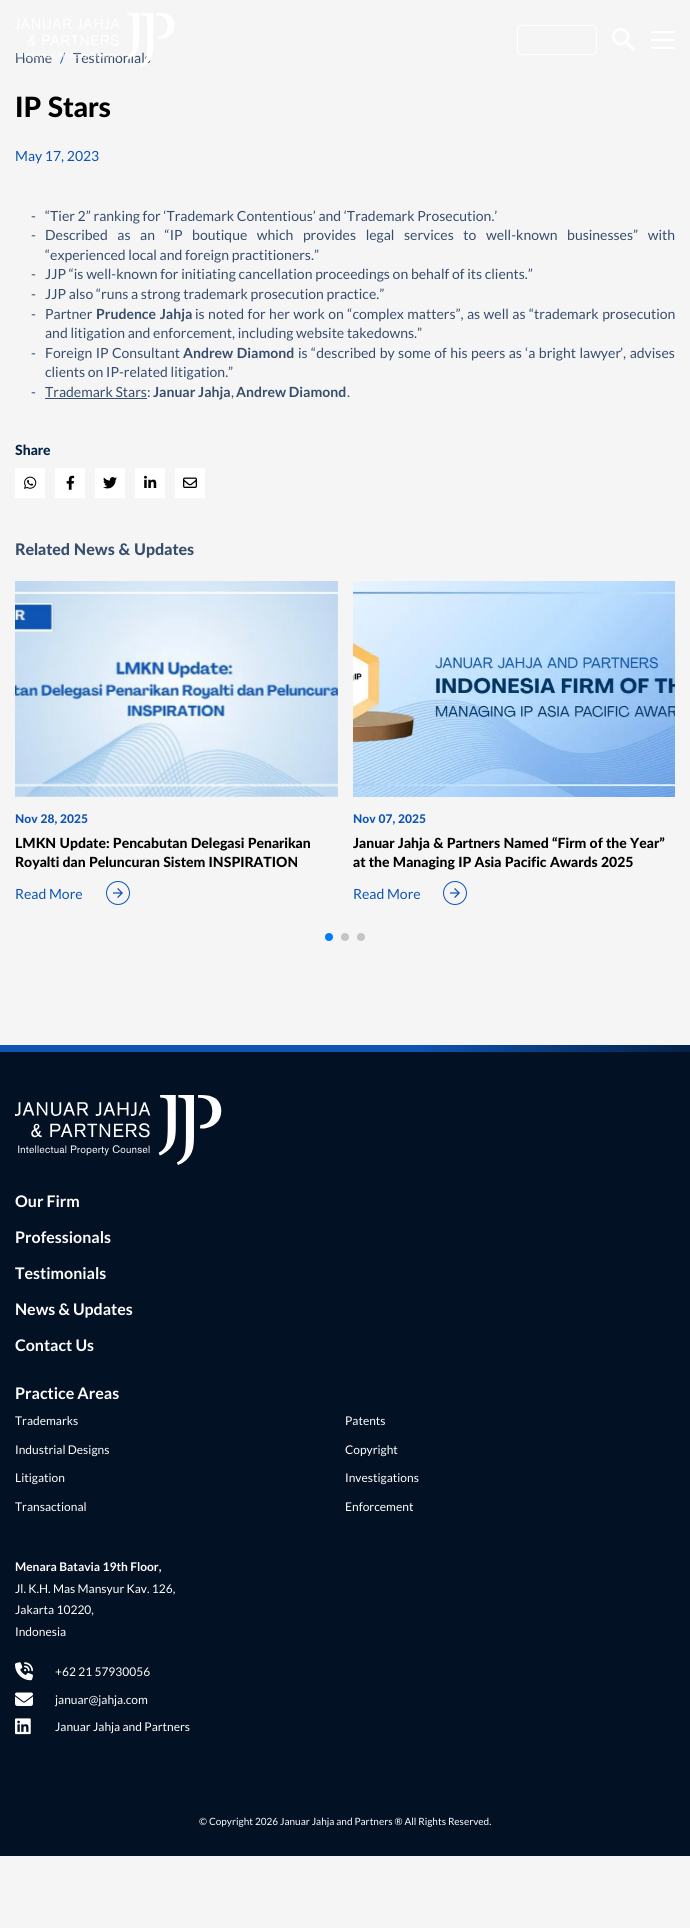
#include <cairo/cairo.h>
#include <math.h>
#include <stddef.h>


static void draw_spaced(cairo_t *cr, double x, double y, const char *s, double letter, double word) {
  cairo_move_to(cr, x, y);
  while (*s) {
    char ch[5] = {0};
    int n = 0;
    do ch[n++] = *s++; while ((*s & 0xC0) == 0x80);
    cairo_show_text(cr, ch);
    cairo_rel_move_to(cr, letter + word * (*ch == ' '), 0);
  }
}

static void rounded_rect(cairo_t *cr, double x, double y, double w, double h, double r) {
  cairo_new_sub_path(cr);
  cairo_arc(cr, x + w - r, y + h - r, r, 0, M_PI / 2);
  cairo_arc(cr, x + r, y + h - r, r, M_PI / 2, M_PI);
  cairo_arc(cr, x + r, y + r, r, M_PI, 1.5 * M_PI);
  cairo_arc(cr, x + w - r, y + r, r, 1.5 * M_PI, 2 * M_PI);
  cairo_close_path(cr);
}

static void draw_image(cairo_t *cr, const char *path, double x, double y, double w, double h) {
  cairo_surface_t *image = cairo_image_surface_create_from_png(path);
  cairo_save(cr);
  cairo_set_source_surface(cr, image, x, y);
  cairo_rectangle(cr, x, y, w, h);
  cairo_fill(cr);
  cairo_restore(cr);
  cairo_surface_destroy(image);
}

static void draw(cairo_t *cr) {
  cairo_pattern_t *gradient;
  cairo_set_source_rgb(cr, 245 / 255.0, 245 / 255.0, 245 / 255.0);
  cairo_paint(cr);
  rounded_rect(cr, 517.5, 25.5, 79, 29, 4.5);
  cairo_set_source_rgb(cr, 1, 1, 1);
  cairo_set_line_width(cr, 1);
  cairo_stroke(cr);
  draw_image(cr, "images/2.png", 612, 28, 23, 23);
  cairo_rectangle(cr, 651, 31, 24, 2);
  cairo_fill(cr);
  cairo_rectangle(cr, 651, 39, 24, 2);
  cairo_fill(cr);
  cairo_rectangle(cr, 651, 47, 24, 2);
  cairo_fill(cr);
  cairo_set_source_rgb(cr, 55 / 255.0, 77 / 255.0, 108 / 255.0);
  cairo_rectangle(cr, 45, 398, 102, 1);
  cairo_fill(cr);
  cairo_set_source_rgb(cr, 1, 1, 1);
  cairo_rectangle(cr, 15, 468, 30, 30);
  cairo_fill(cr);
  draw_image(cr, "images/3.png", 24, 476, 13, 13);
  cairo_rectangle(cr, 55, 468, 30, 30);
  cairo_fill(cr);
  draw_image(cr, "images/4.png", 66, 475, 9, 15);
  cairo_rectangle(cr, 95, 468, 30, 30);
  cairo_fill(cr);
  draw_image(cr, "images/5.png", 103, 477, 14, 12);
  cairo_rectangle(cr, 135, 468, 30, 30);
  cairo_fill(cr);
  draw_image(cr, "images/6.png", 144, 475, 13, 13);
  cairo_rectangle(cr, 175, 468, 30, 30);
  cairo_fill(cr);
  draw_image(cr, "images/7.png", 183, 477, 14, 11);
  draw_image(cr, "images/8.png", 15, 581, 323, 216);
  draw_image(cr, "images/9.png", 106, 881, 24, 24);
  draw_image(cr, "images/10.png", 353, 581, 322, 216);
  draw_image(cr, "images/9.png", 443, 881, 24, 24);
  cairo_set_source_rgb(cr, 0, 122 / 255.0, 1);
  cairo_arc(cr, 329, 937, 4, 0, 2 * M_PI);
  cairo_fill(cr);
  cairo_set_source_rgb(cr, 196 / 255.0, 196 / 255.0, 196 / 255.0);
  cairo_arc(cr, 345, 937, 4, 0, 2 * M_PI);
  cairo_fill(cr);
  cairo_arc(cr, 361, 937, 4, 0, 2 * M_PI);
  cairo_fill(cr);
  cairo_set_source_rgb(cr, 3 / 255.0, 17 / 255.0, 36 / 255.0);
  cairo_rectangle(cr, 0, 1052, 690, 804);
  cairo_fill(cr);
  gradient = cairo_pattern_create_linear(0, 1049, 690, 1049);
  cairo_pattern_add_color_stop_rgba(gradient, 0.6, 13 / 255.0, 84 / 255.0, 181 / 255.0, 1);
  cairo_pattern_add_color_stop_rgba(gradient, 1, 5 / 255.0, 33 / 255.0, 71 / 255.0, 1);
  cairo_set_source(cr, gradient);
  cairo_pattern_destroy(gradient);
  cairo_rectangle(cr, 0, 1045, 690, 7);
  cairo_fill(cr);
  draw_image(cr, "images/11.png", 15, 1095, 207, 70);
  draw_image(cr, "images/12.png", 15, 1662, 18, 19);
  draw_image(cr, "images/13.png", 15, 1692, 18, 14);
  draw_image(cr, "images/14.png", 15, 1718, 16, 17);
  cairo_select_font_face(cr, "Lato", CAIRO_FONT_SLANT_NORMAL, CAIRO_FONT_WEIGHT_NORMAL);
  cairo_set_font_size(cr, 14);
  cairo_set_source_rgb(cr, 55 / 255.0, 77 / 255.0, 108 / 255.0);
  cairo_move_to(cr, 15, 63);
  cairo_show_text(cr, "Home");
  cairo_set_source_rgb(cr, 13 / 255.0, 84 / 255.0, 181 / 255.0);
  cairo_move_to(cr, 60, 63);
  cairo_show_text(cr, "/");
  cairo_set_source_rgb(cr, 55 / 255.0, 77 / 255.0, 108 / 255.0);
  cairo_move_to(cr, 73, 63);
  cairo_show_text(cr, "Testimonials");
  draw_image(cr, "images/1.png", 15, 13, 160, 54);
  cairo_select_font_face(cr, "Lato Black", CAIRO_FONT_SLANT_NORMAL, CAIRO_FONT_WEIGHT_NORMAL);
  cairo_set_font_size(cr, 28);
  cairo_set_source_rgb(cr, 0, 0, 0);
  cairo_move_to(cr, 15, 117);
  cairo_show_text(cr, "IP Stars");
  cairo_select_font_face(cr, "Lato", CAIRO_FONT_SLANT_NORMAL, CAIRO_FONT_WEIGHT_NORMAL);
  cairo_set_font_size(cr, 14);
  cairo_set_source_rgb(cr, 13 / 255.0, 84 / 255.0, 181 / 255.0);
  cairo_move_to(cr, 15, 161);
  cairo_show_text(cr, "May 17, 2023");
  cairo_set_source_rgb(cr, 55 / 255.0, 77 / 255.0, 108 / 255.0);
  cairo_move_to(cr, 31, 221);
  cairo_show_text(cr, "-");
  cairo_move_to(cr, 45, 221);
  cairo_show_text(cr, "“Tier 2” ranking for ‘Trademark Contentious’ and ‘Trademark Prosecution.’");
  cairo_move_to(cr, 31, 240);
  cairo_show_text(cr, "-");
  draw_spaced(cr, 45, 240, "Described as an “IP boutique which provides legal services to well-known businesses” with", 0, 6.9);
  cairo_move_to(cr, 45, 260);
  cairo_show_text(cr, "“experienced local and foreign practitioners.”");
  cairo_move_to(cr, 31, 279);
  cairo_show_text(cr, "-");
  cairo_move_to(cr, 45, 279);
  cairo_show_text(cr, "JJP “is well-known for initiating cancellation proceedings on behalf of its clients.”");
  cairo_move_to(cr, 31, 299);
  cairo_show_text(cr, "-");
  cairo_move_to(cr, 45, 299);
  cairo_show_text(cr, "JJP also “runs a strong trademark prosecution practice.”");
  cairo_move_to(cr, 31, 319);
  cairo_show_text(cr, "-");
  cairo_move_to(cr, 45, 319);
  cairo_show_text(cr, "Partner");
  cairo_select_font_face(cr, "Lato", CAIRO_FONT_SLANT_NORMAL, CAIRO_FONT_WEIGHT_BOLD);
  draw_spaced(cr, 96, 319, "Prudence Jahja", 0, 1);
  cairo_select_font_face(cr, "Lato", CAIRO_FONT_SLANT_NORMAL, CAIRO_FONT_WEIGHT_NORMAL);
  draw_spaced(cr, 195, 319, "is noted for her work on “complex matters”, as well as “trademark prosecution", 0, 0.75);
  cairo_move_to(cr, 45, 338);
  cairo_show_text(cr, "and litigation and enforcement, including website takedowns.”");
  cairo_move_to(cr, 31, 358);
  cairo_show_text(cr, "-");
  draw_spaced(cr, 45, 358, "Foreign IP Consultant", 0, 0.75);
  cairo_select_font_face(cr, "Lato", CAIRO_FONT_SLANT_NORMAL, CAIRO_FONT_WEIGHT_BOLD);
  draw_spaced(cr, 183, 358, "Andrew Diamond", 0, 1);
  cairo_select_font_face(cr, "Lato", CAIRO_FONT_SLANT_NORMAL, CAIRO_FONT_WEIGHT_NORMAL);
  draw_spaced(cr, 298, 358, "is “described by some of his peers as ‘a bright lawyer", 0, 0.75);
  draw_spaced(cr, 620, 358, "’, advises", 0, 1);
  cairo_move_to(cr, 45, 377);
  cairo_show_text(cr, "clients on IP-related litigation.”");
  cairo_move_to(cr, 31, 397);
  cairo_show_text(cr, "-");
  cairo_move_to(cr, 45, 397);
  cairo_show_text(cr, "Trademark Stars:");
  cairo_select_font_face(cr, "Lato", CAIRO_FONT_SLANT_NORMAL, CAIRO_FONT_WEIGHT_BOLD);
  cairo_move_to(cr, 153, 397);
  cairo_show_text(cr, "Januar Jahja");
  cairo_move_to(cr, 236, 397);
  cairo_show_text(cr, "Andrew Diamond");
  cairo_select_font_face(cr, "Lato", CAIRO_FONT_SLANT_NORMAL, CAIRO_FONT_WEIGHT_NORMAL);
  cairo_move_to(cr, 231, 397);
  cairo_show_text(cr, ",");
  cairo_move_to(cr, 347, 397);
  cairo_show_text(cr, ".");
  cairo_select_font_face(cr, "Lato Black", CAIRO_FONT_SLANT_NORMAL, CAIRO_FONT_WEIGHT_NORMAL);
  cairo_set_source_rgb(cr, 5 / 255.0, 33 / 255.0, 71 / 255.0);
  cairo_move_to(cr, 15, 455);
  cairo_show_text(cr, "Share");
  cairo_set_font_size(cr, 16);
  cairo_set_source_rgb(cr, 55 / 255.0, 77 / 255.0, 108 / 255.0);
  cairo_move_to(cr, 15, 555);
  cairo_show_text(cr, "Related News & Updates");
  cairo_set_font_size(cr, 12);
  cairo_set_source_rgb(cr, 13 / 255.0, 84 / 255.0, 181 / 255.0);
  cairo_move_to(cr, 15, 823);
  cairo_show_text(cr, "Nov 28, 2025");
  cairo_set_font_size(cr, 14);
  cairo_set_source_rgb(cr, 0, 0, 0);
  cairo_move_to(cr, 15, 848);
  cairo_show_text(cr, "LMKN Update: Pencabutan Delegasi Penarikan");
  cairo_move_to(cr, 15, 867);
  cairo_show_text(cr, "Royalti dan Peluncuran Sistem INSPIRATION");
  cairo_select_font_face(cr, "Lato", CAIRO_FONT_SLANT_NORMAL, CAIRO_FONT_WEIGHT_NORMAL);
  cairo_set_source_rgb(cr, 13 / 255.0, 84 / 255.0, 181 / 255.0);
  cairo_move_to(cr, 15, 899);
  cairo_show_text(cr, "Read More");
  cairo_select_font_face(cr, "Lato Black", CAIRO_FONT_SLANT_NORMAL, CAIRO_FONT_WEIGHT_NORMAL);
  cairo_set_font_size(cr, 12);
  cairo_move_to(cr, 353, 823);
  cairo_show_text(cr, "Nov 07, 2025");
  cairo_set_font_size(cr, 14);
  cairo_set_source_rgb(cr, 0, 0, 0);
  cairo_move_to(cr, 353, 848);
  cairo_show_text(cr, "Januar Jahja & Partners Named “Firm of the Year”");
  cairo_move_to(cr, 353, 867);
  cairo_show_text(cr, "at the Managing IP Asia Pacific Awards 2025");
  cairo_select_font_face(cr, "Lato", CAIRO_FONT_SLANT_NORMAL, CAIRO_FONT_WEIGHT_NORMAL);
  cairo_set_source_rgb(cr, 13 / 255.0, 84 / 255.0, 181 / 255.0);
  cairo_move_to(cr, 353, 899);
  cairo_show_text(cr, "Read More");
  cairo_select_font_face(cr, "Lato", CAIRO_FONT_SLANT_NORMAL, CAIRO_FONT_WEIGHT_BOLD);
  cairo_set_font_size(cr, 16);
  cairo_set_source_rgb(cr, 1, 1, 1);
  cairo_move_to(cr, 15, 1207);
  cairo_show_text(cr, "Our Firm");
  cairo_move_to(cr, 15, 1243);
  cairo_show_text(cr, "Professionals");
  cairo_move_to(cr, 15, 1279);
  cairo_show_text(cr, "Testimonials");
  cairo_move_to(cr, 15, 1315);
  cairo_show_text(cr, "News & Updates");
  cairo_move_to(cr, 15, 1351);
  cairo_show_text(cr, "Contact Us");
  cairo_move_to(cr, 15, 1399);
  cairo_show_text(cr, "Practice Areas");
  cairo_select_font_face(cr, "Lato", CAIRO_FONT_SLANT_NORMAL, CAIRO_FONT_WEIGHT_NORMAL);
  cairo_set_font_size(cr, 12);
  cairo_move_to(cr, 15, 1425);
  cairo_show_text(cr, "Trademarks");
  cairo_move_to(cr, 345, 1425);
  cairo_show_text(cr, "Patents");
  cairo_move_to(cr, 15, 1454);
  cairo_show_text(cr, "Industrial Designs");
  cairo_move_to(cr, 345, 1454);
  cairo_show_text(cr, "Copyright");
  cairo_move_to(cr, 15, 1482);
  cairo_show_text(cr, "Litigation");
  cairo_move_to(cr, 345, 1482);
  cairo_show_text(cr, "Investigations");
  cairo_move_to(cr, 15, 1511);
  cairo_show_text(cr, "Transactional");
  cairo_move_to(cr, 345, 1511);
  cairo_show_text(cr, "Enforcement");
  cairo_select_font_face(cr, "Lato", CAIRO_FONT_SLANT_NORMAL, CAIRO_FONT_WEIGHT_BOLD);
  cairo_move_to(cr, 15, 1571);
  cairo_show_text(cr, "Menara Batavia 19th Floor,");
  cairo_select_font_face(cr, "Lato", CAIRO_FONT_SLANT_NORMAL, CAIRO_FONT_WEIGHT_NORMAL);
  cairo_move_to(cr, 15, 1593);
  cairo_show_text(cr, "Jl. K.H. Mas Mansyur Kav. 126,");
  cairo_move_to(cr, 15, 1614);
  cairo_show_text(cr, "Jakarta 10220,");
  cairo_move_to(cr, 15, 1636);
  cairo_show_text(cr, "Indonesia");
  cairo_move_to(cr, 55, 1676);
  cairo_show_text(cr, "+62 21 57930056");
  cairo_move_to(cr, 55, 1704);
  cairo_show_text(cr, "januar@jahja.com");
  cairo_move_to(cr, 55, 1731);
  cairo_show_text(cr, "Januar Jahja and Partners");
  cairo_set_font_size(cr, 10);
  cairo_move_to(cr, 199, 1825);
  cairo_show_text(cr, "© Copyright 2026 Januar Jahja and Partners ® All Rights Reserved.");
}

int main(void) {
  cairo_surface_t *surface = cairo_image_surface_create(CAIRO_FORMAT_RGB24, 690, 1928);
  cairo_t *cr = cairo_create(surface);
  cairo_font_options_t *options = cairo_font_options_create();
  cairo_font_options_set_hint_metrics(options, CAIRO_HINT_METRICS_OFF);
  cairo_font_options_set_hint_style(options, CAIRO_HINT_STYLE_NONE);
  cairo_set_font_options(cr, options);
  cairo_set_miter_limit(cr, 4);
  draw(cr);
  cairo_surface_write_to_png(surface, "out.png");
  cairo_font_options_destroy(options);
  cairo_destroy(cr);
  cairo_surface_destroy(surface);
  return 0;
}
